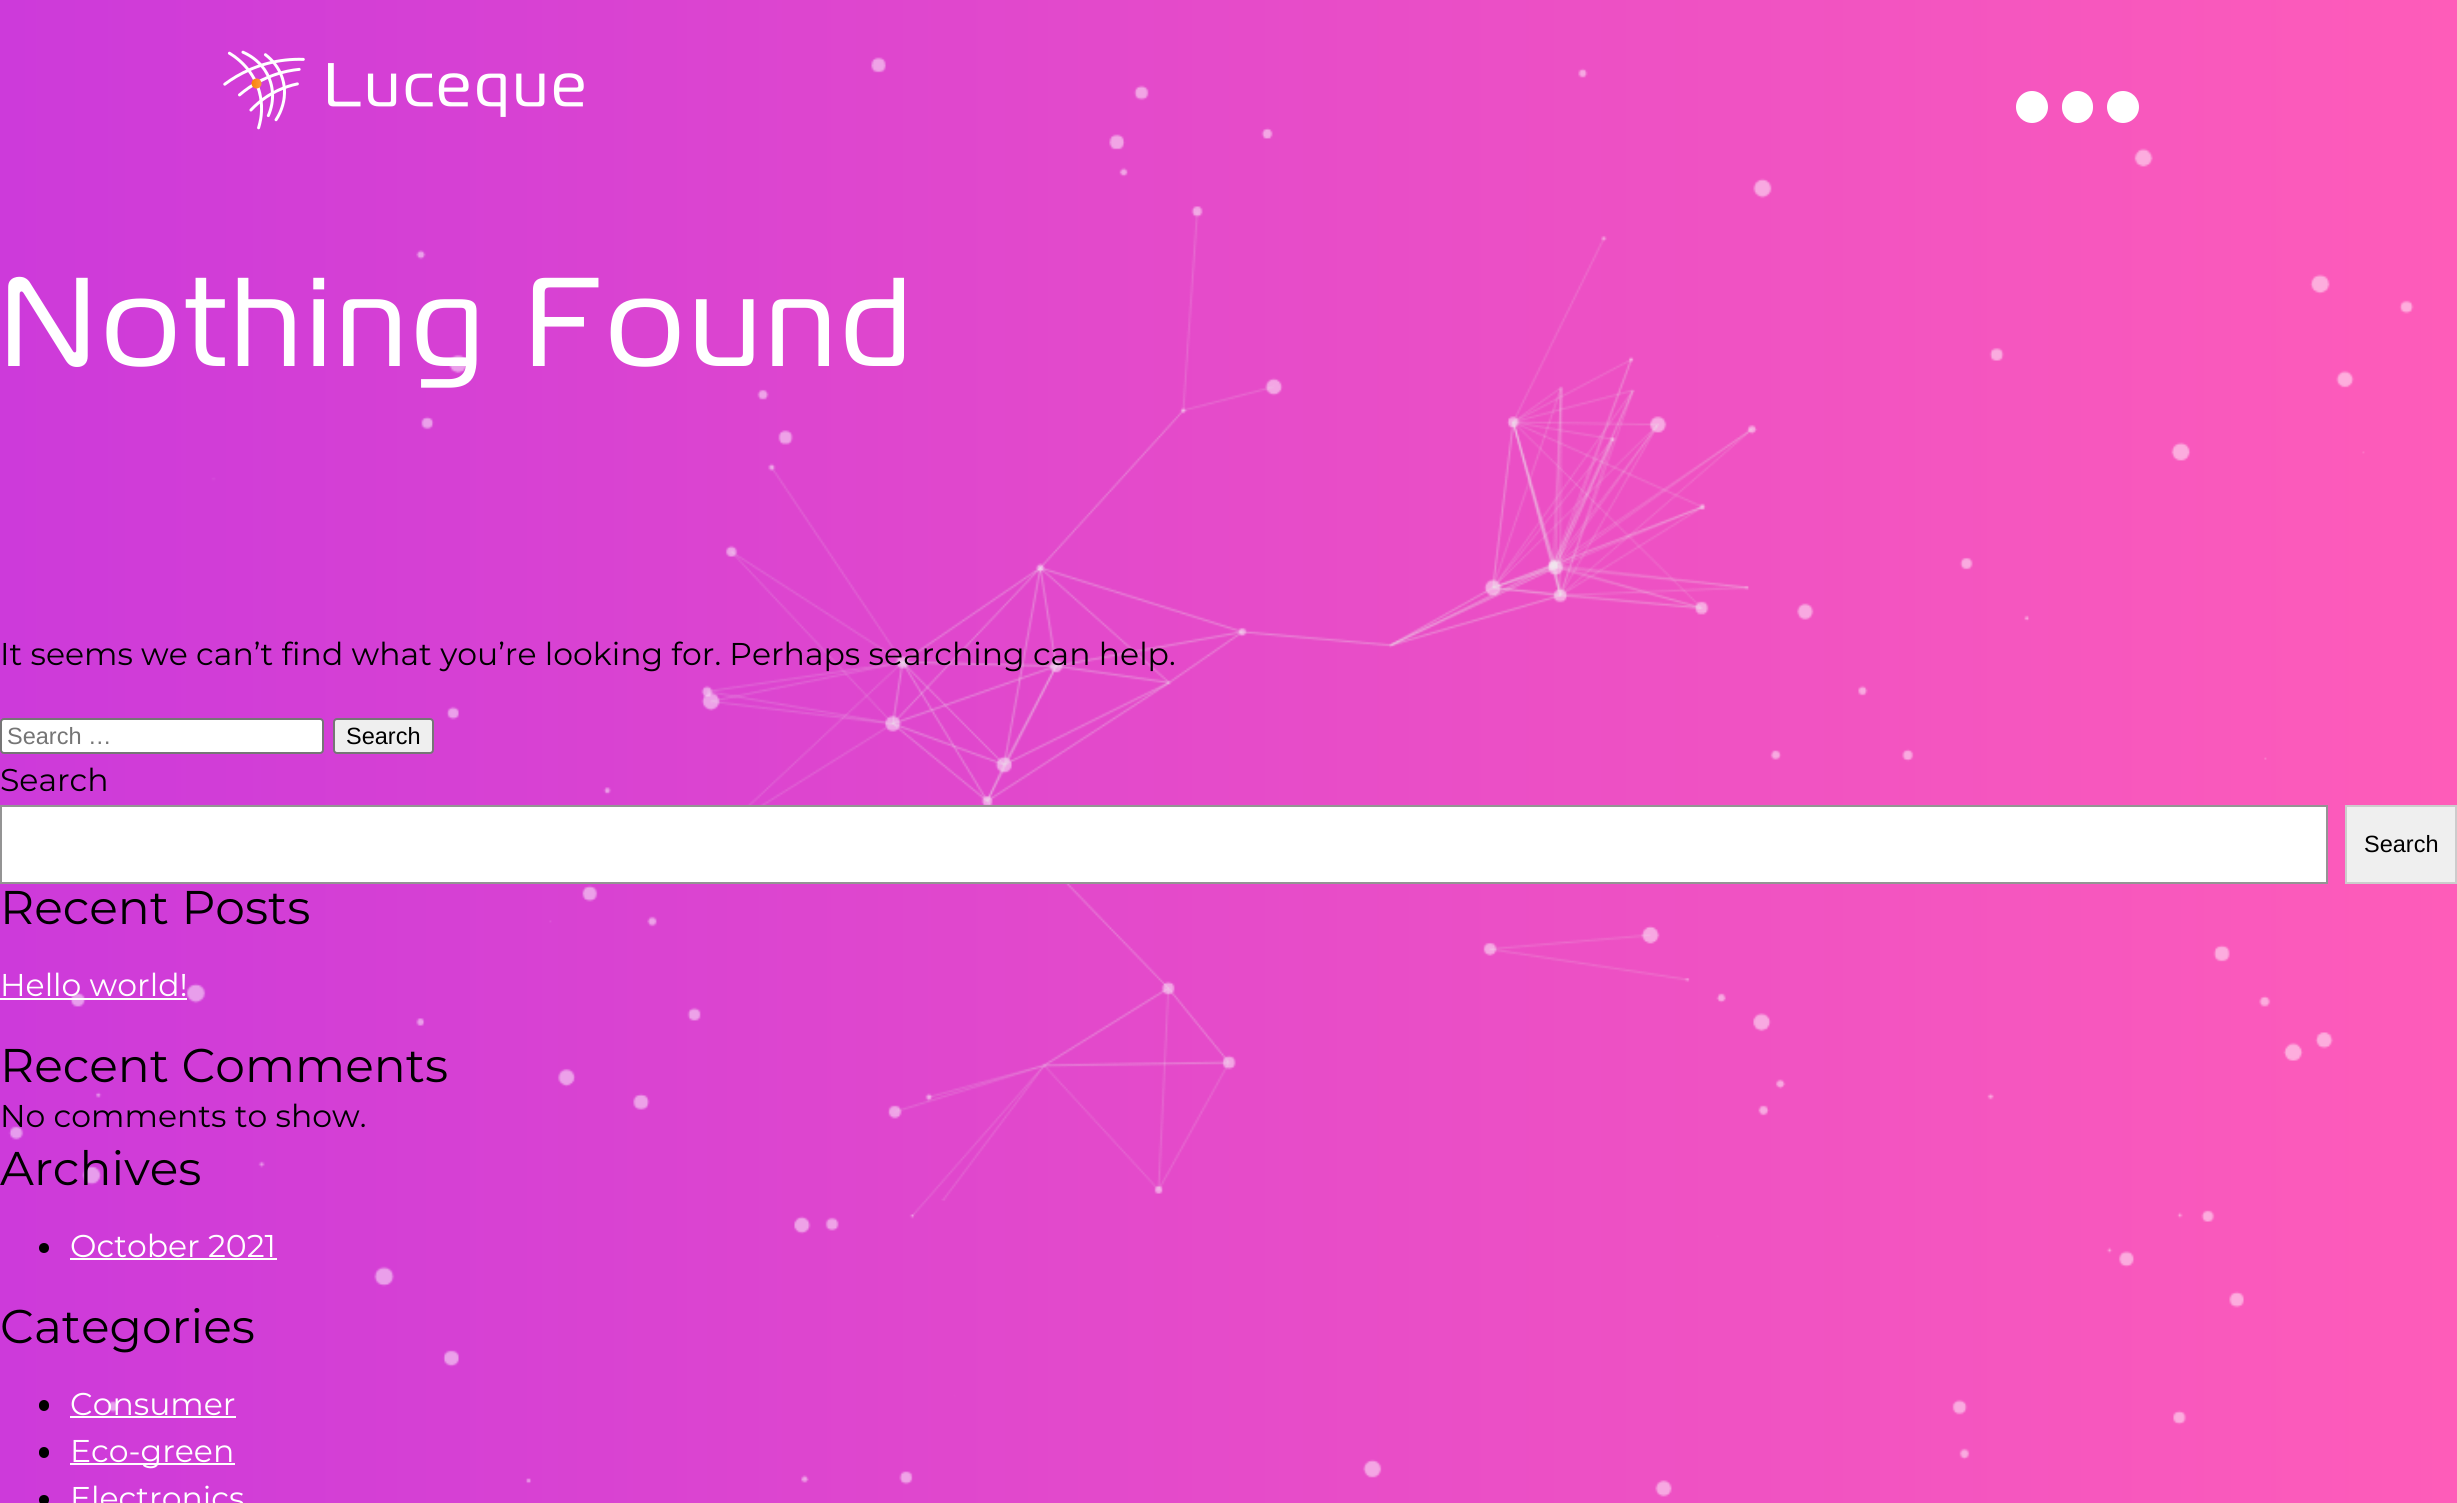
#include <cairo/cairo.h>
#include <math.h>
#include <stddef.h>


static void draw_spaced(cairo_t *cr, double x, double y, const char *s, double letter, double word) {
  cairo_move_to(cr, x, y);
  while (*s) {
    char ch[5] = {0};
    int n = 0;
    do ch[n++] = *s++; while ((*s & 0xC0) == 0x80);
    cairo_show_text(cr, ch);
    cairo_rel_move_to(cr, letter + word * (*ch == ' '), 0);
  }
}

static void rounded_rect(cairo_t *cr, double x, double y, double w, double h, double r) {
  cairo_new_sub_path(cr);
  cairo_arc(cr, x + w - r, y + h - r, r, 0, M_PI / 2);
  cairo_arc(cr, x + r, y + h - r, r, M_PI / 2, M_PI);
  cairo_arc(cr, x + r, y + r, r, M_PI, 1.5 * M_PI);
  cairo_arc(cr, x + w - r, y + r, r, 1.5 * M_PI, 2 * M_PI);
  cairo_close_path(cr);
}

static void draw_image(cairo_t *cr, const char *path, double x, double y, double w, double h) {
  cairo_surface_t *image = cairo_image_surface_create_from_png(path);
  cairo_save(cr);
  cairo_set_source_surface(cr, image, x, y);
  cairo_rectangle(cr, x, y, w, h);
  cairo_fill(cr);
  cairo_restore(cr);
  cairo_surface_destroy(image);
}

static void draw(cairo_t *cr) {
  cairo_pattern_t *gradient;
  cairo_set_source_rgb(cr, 1, 1, 1);
  cairo_paint(cr);
  gradient = cairo_pattern_create_linear(0, 1237, 2457, 1237);
  cairo_pattern_add_color_stop_rgba(gradient, 0, 205 / 255.0, 58 / 255.0, 218 / 255.0, 1);
  cairo_pattern_add_color_stop_rgba(gradient, 1, 254 / 255.0, 92 / 255.0, 185 / 255.0, 1);
  cairo_set_source(cr, gradient);
  cairo_pattern_destroy(gradient);
  cairo_rectangle(cr, 0, 0, 2457, 1503);
  cairo_fill(cr);
  draw_image(cr, "images/1.png", 8, 57, 2406, 1440);
  draw_image(cr, "images/2.png", 223, 50, 361, 80);
  cairo_set_source_rgb(cr, 1, 1, 1);
  cairo_arc(cr, 2032, 107, 16, 0, 2 * M_PI);
  cairo_fill(cr);
  rounded_rect(cr, 2062, 91, 31, 32, 15.5);
  cairo_fill(cr);
  cairo_arc(cr, 2123, 107, 16, 0, 2 * M_PI);
  cairo_fill(cr);
  rounded_rect(cr, 1, 719, 322, 34, 3);
  cairo_fill_preserve(cr);
  cairo_set_source_rgb(cr, 118 / 255.0, 118 / 255.0, 118 / 255.0);
  cairo_stroke(cr);
  cairo_set_source_rgb(cr, 239 / 255.0, 239 / 255.0, 239 / 255.0);
  rounded_rect(cr, 334, 719, 99, 34, 3);
  cairo_fill_preserve(cr);
  cairo_set_source_rgb(cr, 118 / 255.0, 118 / 255.0, 118 / 255.0);
  cairo_stroke(cr);
  cairo_set_source_rgb(cr, 1, 1, 1);
  cairo_rectangle(cr, 1, 806, 2326, 77);
  cairo_fill_preserve(cr);
  cairo_set_source_rgb(cr, 148 / 255.0, 148 / 255.0, 148 / 255.0);
  cairo_stroke(cr);
  cairo_set_source_rgb(cr, 239 / 255.0, 239 / 255.0, 239 / 255.0);
  cairo_rectangle(cr, 2346, 806, 110, 77);
  cairo_fill_preserve(cr);
  cairo_set_source_rgb(cr, 204 / 255.0, 204 / 255.0, 204 / 255.0);
  cairo_stroke(cr);
  cairo_set_source_rgb(cr, 1, 1, 1);
  cairo_rectangle(cr, 0, 998, 187, 2);
  cairo_fill(cr);
  cairo_set_source_rgb(cr, 0, 0, 0);
  cairo_arc(cr, 44, 1248, 5, 0, 2 * M_PI);
  cairo_fill(cr);
  cairo_set_source_rgb(cr, 1, 1, 1);
  cairo_rectangle(cr, 70, 1258, 207, 2);
  cairo_fill(cr);
  cairo_set_source_rgb(cr, 0, 0, 0);
  rounded_rect(cr, 39, 1400, 10, 11, 5);
  cairo_fill(cr);
  cairo_set_source_rgb(cr, 1, 1, 1);
  cairo_rectangle(cr, 70, 1416, 166, 2);
  cairo_fill(cr);
  cairo_set_source_rgb(cr, 0, 0, 0);
  rounded_rect(cr, 39, 1447, 10, 11, 5);
  cairo_fill(cr);
  cairo_set_source_rgb(cr, 1, 1, 1);
  cairo_rectangle(cr, 70, 1463, 165, 2);
  cairo_fill(cr);
  cairo_set_source_rgb(cr, 0, 0, 0);
  cairo_arc(cr, 44, 1500, 5, 0, 2 * M_PI);
  cairo_fill(cr);
  cairo_select_font_face(cr, "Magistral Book", CAIRO_FONT_SLANT_NORMAL, CAIRO_FONT_WEIGHT_NORMAL);
  cairo_set_font_size(cr, 126);
  cairo_set_source_rgb(cr, 1, 1, 1);
  draw_spaced(cr, 0, 366, "Nothing Found", 6.25, 0);
  cairo_select_font_face(cr, "Montserrat", CAIRO_FONT_SLANT_NORMAL, CAIRO_FONT_WEIGHT_NORMAL);
  cairo_set_font_size(cr, 31.5);
  cairo_set_source_rgb(cr, 0, 0, 0);
  cairo_move_to(cr, 0, 665);
  cairo_show_text(cr, "It seems we can’t find what you’re looking for. Perhaps searching can help.");
  cairo_select_font_face(cr, "Liberation Sans", CAIRO_FONT_SLANT_NORMAL, CAIRO_FONT_WEIGHT_NORMAL);
  cairo_set_font_size(cr, 23.5);
  cairo_set_source_rgb(cr, 117 / 255.0, 117 / 255.0, 117 / 255.0);
  cairo_move_to(cr, 7, 744);
  cairo_show_text(cr, "Search …");
  cairo_set_source_rgb(cr, 0, 0, 0);
  cairo_move_to(cr, 346, 744);
  cairo_show_text(cr, "Search");
  cairo_select_font_face(cr, "Montserrat", CAIRO_FONT_SLANT_NORMAL, CAIRO_FONT_WEIGHT_NORMAL);
  cairo_set_font_size(cr, 31.5);
  cairo_move_to(cr, 0, 791);
  cairo_show_text(cr, "Search");
  cairo_select_font_face(cr, "Liberation Sans", CAIRO_FONT_SLANT_NORMAL, CAIRO_FONT_WEIGHT_NORMAL);
  cairo_set_font_size(cr, 23.5);
  cairo_move_to(cr, 2364, 852);
  cairo_show_text(cr, "Search");
  cairo_select_font_face(cr, "Montserrat", CAIRO_FONT_SLANT_NORMAL, CAIRO_FONT_WEIGHT_NORMAL);
  cairo_set_font_size(cr, 47.25);
  cairo_move_to(cr, 0, 924);
  cairo_show_text(cr, "Recent Posts");
  cairo_set_font_size(cr, 31.5);
  cairo_set_source_rgb(cr, 1, 1, 1);
  cairo_move_to(cr, 0, 996);
  cairo_show_text(cr, "Hello world!");
  cairo_set_font_size(cr, 47.25);
  cairo_set_source_rgb(cr, 0, 0, 0);
  cairo_move_to(cr, 0, 1082);
  cairo_show_text(cr, "Recent Comments");
  cairo_set_font_size(cr, 31.5);
  cairo_move_to(cr, 0, 1127);
  cairo_show_text(cr, "No comments to show.");
  cairo_set_font_size(cr, 47.25);
  cairo_move_to(cr, 0, 1185);
  cairo_show_text(cr, "Archives");
  cairo_set_font_size(cr, 31.5);
  cairo_set_source_rgb(cr, 1, 1, 1);
  cairo_move_to(cr, 70, 1257);
  cairo_show_text(cr, "October 2021");
  cairo_set_font_size(cr, 47.25);
  cairo_set_source_rgb(cr, 0, 0, 0);
  cairo_move_to(cr, 0, 1343);
  cairo_show_text(cr, "Categories");
  cairo_set_font_size(cr, 31.5);
  cairo_set_source_rgb(cr, 1, 1, 1);
  cairo_move_to(cr, 70, 1415);
  cairo_show_text(cr, "Consumer");
  cairo_move_to(cr, 70, 1462);
  cairo_show_text(cr, "Eco-green");
  cairo_move_to(cr, 70, 1509);
  cairo_show_text(cr, "Electronics");
}

int main(void) {
  cairo_surface_t *surface = cairo_image_surface_create(CAIRO_FORMAT_RGB24, 2457, 1503);
  cairo_t *cr = cairo_create(surface);
  cairo_font_options_t *options = cairo_font_options_create();
  cairo_font_options_set_hint_metrics(options, CAIRO_HINT_METRICS_OFF);
  cairo_font_options_set_hint_style(options, CAIRO_HINT_STYLE_NONE);
  cairo_set_font_options(cr, options);
  cairo_set_miter_limit(cr, 4);
  draw(cr);
  cairo_surface_write_to_png(surface, "out.png");
  cairo_font_options_destroy(options);
  cairo_destroy(cr);
  cairo_surface_destroy(surface);
  return 0;
}
